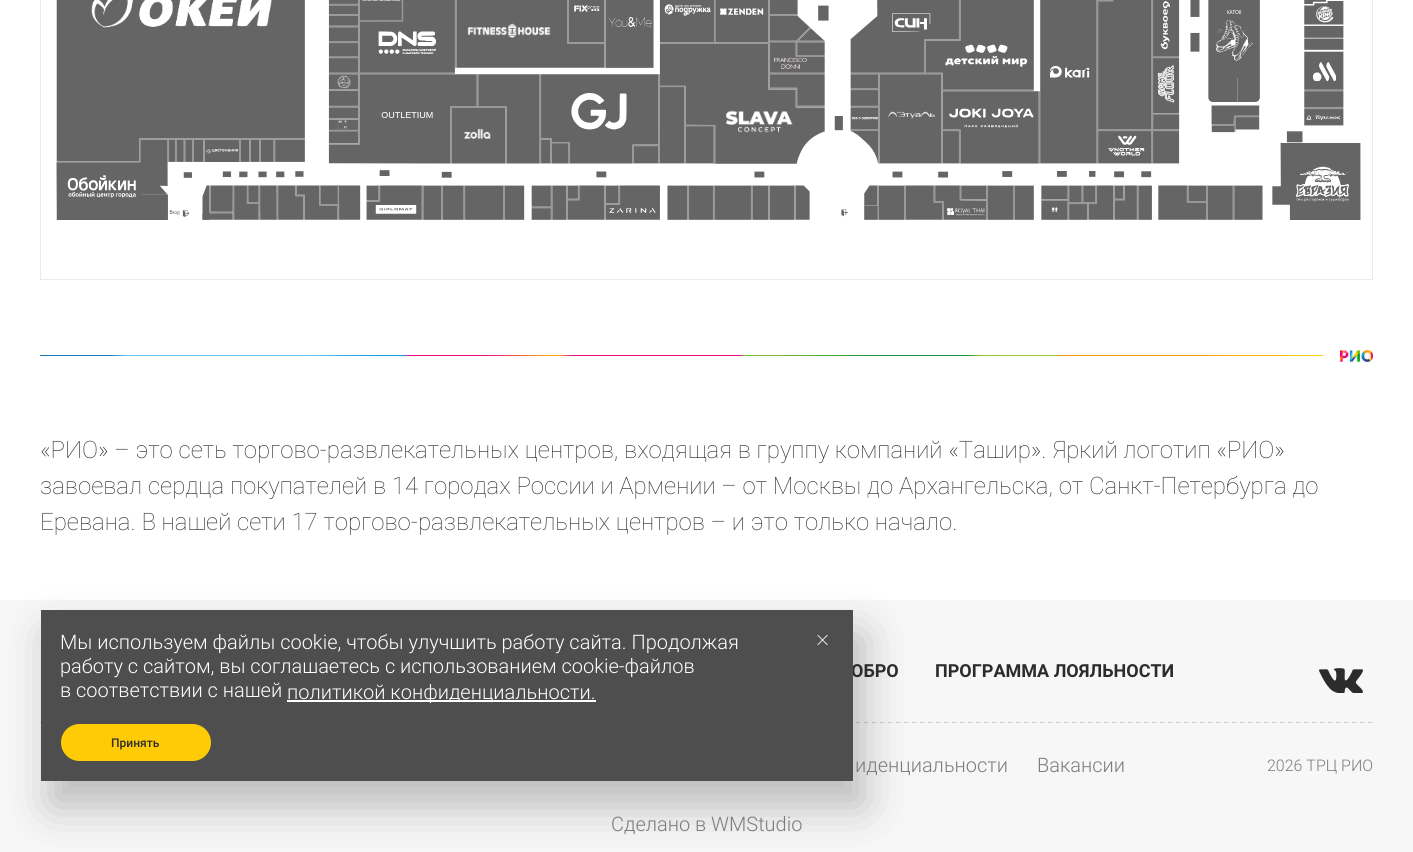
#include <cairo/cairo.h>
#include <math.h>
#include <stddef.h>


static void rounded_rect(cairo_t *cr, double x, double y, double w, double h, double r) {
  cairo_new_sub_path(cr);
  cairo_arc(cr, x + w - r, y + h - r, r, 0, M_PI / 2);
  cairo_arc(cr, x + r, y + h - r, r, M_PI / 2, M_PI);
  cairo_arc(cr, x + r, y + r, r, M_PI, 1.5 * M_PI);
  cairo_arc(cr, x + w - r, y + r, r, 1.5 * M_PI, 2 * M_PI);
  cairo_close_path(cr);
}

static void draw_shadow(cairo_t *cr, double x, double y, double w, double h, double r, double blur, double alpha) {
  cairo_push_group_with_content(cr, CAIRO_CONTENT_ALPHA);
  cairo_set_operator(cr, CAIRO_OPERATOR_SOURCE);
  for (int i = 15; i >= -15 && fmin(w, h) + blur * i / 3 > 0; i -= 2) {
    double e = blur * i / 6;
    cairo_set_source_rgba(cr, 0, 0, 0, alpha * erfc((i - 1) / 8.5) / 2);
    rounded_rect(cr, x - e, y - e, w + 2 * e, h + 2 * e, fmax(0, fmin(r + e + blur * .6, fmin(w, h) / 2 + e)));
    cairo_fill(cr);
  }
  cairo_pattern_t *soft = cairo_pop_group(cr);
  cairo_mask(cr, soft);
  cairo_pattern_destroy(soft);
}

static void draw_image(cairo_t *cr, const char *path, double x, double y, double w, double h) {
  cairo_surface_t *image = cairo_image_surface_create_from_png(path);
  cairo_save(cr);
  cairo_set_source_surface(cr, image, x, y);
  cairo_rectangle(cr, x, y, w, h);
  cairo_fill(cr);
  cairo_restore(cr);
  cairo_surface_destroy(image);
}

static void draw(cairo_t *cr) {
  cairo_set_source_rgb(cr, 1, 1, 1);
  cairo_paint(cr);
  cairo_rectangle(cr, 40.5, -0.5, 1332, 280);
  cairo_set_source_rgb(cr, 235 / 255.0, 235 / 255.0, 235 / 255.0);
  cairo_set_line_width(cr, 1);
  cairo_stroke(cr);
  draw_image(cr, "images/1.png", 56, 0, 1305, 220);
  draw_image(cr, "images/2.png", 40, 355, 1283, 1);
  draw_image(cr, "images/3.png", 1340, 350, 33, 12);
  cairo_set_source_rgb(cr, 247 / 255.0, 247 / 255.0, 247 / 255.0);
  cairo_rectangle(cr, 0, 600, 1413, 252);
  cairo_fill(cr);
  draw_image(cr, "images/6.png", 40, 722, 1333, 1);
  cairo_set_source_rgb(cr, 0, 0, 0);
  draw_shadow(cr, 51, 635, 812, 171, 0, 22.5, 0.25);
  draw_image(cr, "images/5.png", 1319, 668, 44, 25);
  cairo_select_font_face(cr, "Roboto Thin", CAIRO_FONT_SLANT_NORMAL, CAIRO_FONT_WEIGHT_NORMAL);
  cairo_set_font_size(cr, 24);
  cairo_set_source_rgb(cr, 44 / 255.0, 44 / 255.0, 44 / 255.0);
  cairo_move_to(cr, 40, 458);
  cairo_show_text(cr, "«РИО» – это сеть торгово-развлекательных центров, входящая в группу компаний «Ташир». Яркий логотип «РИО»");
  cairo_move_to(cr, 40, 494);
  cairo_show_text(cr, "завоевал сердца покупателей в 14 городах России и Армении – от Москвы до Архангельска, от Санкт-Петербурга до");
  cairo_move_to(cr, 40, 530);
  cairo_show_text(cr, "Еревана. В нашей сети 17 торгово-развлекательных центров – и это только начало.");
  cairo_select_font_face(cr, "Roboto", CAIRO_FONT_SLANT_NORMAL, CAIRO_FONT_WEIGHT_BOLD);
  cairo_set_font_size(cr, 18);
  cairo_move_to(cr, 851, 677);
  cairo_show_text(cr, "ОБРО");
  cairo_set_source_rgb(cr, 78 / 255.0, 78 / 255.0, 78 / 255.0);
  cairo_rectangle(cr, 41, 610, 812, 171);
  cairo_fill(cr);
  cairo_set_source_rgb(cr, 1, 203 / 255.0, 6 / 255.0);
  rounded_rect(cr, 61, 724, 150, 37, 18.5);
  cairo_fill(cr);
  cairo_select_font_face(cr, "Roboto Medium", CAIRO_FONT_SLANT_NORMAL, CAIRO_FONT_WEIGHT_NORMAL);
  cairo_set_font_size(cr, 12);
  cairo_set_source_rgb(cr, 44 / 255.0, 44 / 255.0, 44 / 255.0);
  cairo_move_to(cr, 111, 747);
  cairo_show_text(cr, "Принять");
  cairo_set_source_rgb(cr, 1, 1, 1);
  cairo_rectangle(cr, 287, 700, 309, 2);
  cairo_fill(cr);
  cairo_select_font_face(cr, "Roboto Light", CAIRO_FONT_SLANT_NORMAL, CAIRO_FONT_WEIGHT_NORMAL);
  cairo_set_font_size(cr, 20);
  cairo_move_to(cr, 287, 699);
  cairo_show_text(cr, "политикой конфиденциальности.");
  cairo_move_to(cr, 60, 697);
  cairo_show_text(cr, "в соответствии с нашей");
  cairo_move_to(cr, 60, 673);
  cairo_show_text(cr, "работу с сайтом, вы соглашаетесь с использованием cookie-файлов");
  cairo_move_to(cr, 60, 649);
  cairo_show_text(cr, "Мы используем файлы cookie, чтобы улучшить работу сайта. Продолжая");
  draw_image(cr, "images/4.png", 817, 634, 11, 12);
  cairo_select_font_face(cr, "Roboto", CAIRO_FONT_SLANT_NORMAL, CAIRO_FONT_WEIGHT_BOLD);
  cairo_set_font_size(cr, 18);
  cairo_set_source_rgb(cr, 44 / 255.0, 44 / 255.0, 44 / 255.0);
  cairo_move_to(cr, 935, 677);
  cairo_show_text(cr, "ПРОГРАММА ЛОЯЛЬНОСТИ");
  cairo_select_font_face(cr, "Roboto Light", CAIRO_FONT_SLANT_NORMAL, CAIRO_FONT_WEIGHT_NORMAL);
  cairo_set_font_size(cr, 20);
  cairo_set_source_rgb(cr, 124 / 255.0, 124 / 255.0, 124 / 255.0);
  cairo_move_to(cr, 855, 772);
  cairo_show_text(cr, "иденциальности");
  cairo_move_to(cr, 1037, 772);
  cairo_show_text(cr, "Вакансии");
  cairo_set_font_size(cr, 16);
  cairo_move_to(cr, 1267, 771);
  cairo_show_text(cr, "2026 ТРЦ РИО");
  cairo_set_font_size(cr, 20);
  cairo_move_to(cr, 611, 831);
  cairo_show_text(cr, "Сделано в WMStudio");
}

int main(void) {
  cairo_surface_t *surface = cairo_image_surface_create(CAIRO_FORMAT_RGB24, 1413, 852);
  cairo_t *cr = cairo_create(surface);
  cairo_font_options_t *options = cairo_font_options_create();
  cairo_font_options_set_hint_metrics(options, CAIRO_HINT_METRICS_OFF);
  cairo_font_options_set_hint_style(options, CAIRO_HINT_STYLE_NONE);
  cairo_set_font_options(cr, options);
  cairo_set_miter_limit(cr, 4);
  draw(cr);
  cairo_surface_write_to_png(surface, "out.png");
  cairo_font_options_destroy(options);
  cairo_destroy(cr);
  cairo_surface_destroy(surface);
  return 0;
}
